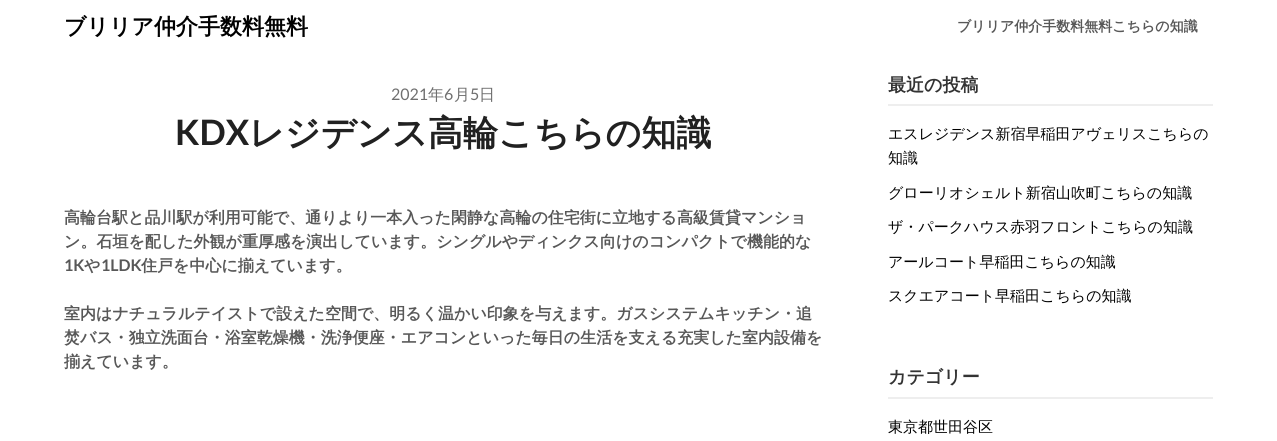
#include <cairo/cairo.h>
#include <math.h>
#include <stddef.h>


static void draw(cairo_t *cr) {
  cairo_set_source_rgb(cr, 1, 1, 1);
  cairo_paint(cr);
  cairo_set_source_rgb(cr, 238 / 255.0, 238 / 255.0, 238 / 255.0);
  cairo_rectangle(cr, 888, 104, 325, 2);
  cairo_fill(cr);
  cairo_rectangle(cr, 888, 397, 325, 2);
  cairo_fill(cr);
  cairo_select_font_face(cr, "WenQuanYi Zen Hei", CAIRO_FONT_SLANT_NORMAL, CAIRO_FONT_WEIGHT_BOLD);
  cairo_set_font_size(cr, 22);
  cairo_set_source_rgb(cr, 0, 0, 0);
  cairo_move_to(cr, 64, 34);
  cairo_show_text(cr, "ブリリア仲介手数料無料");
  cairo_set_font_size(cr, 14);
  cairo_set_source_rgb(cr, 88 / 255.0, 88 / 255.0, 88 / 255.0);
  cairo_move_to(cr, 957, 31);
  cairo_show_text(cr, "ブリリア仲介手数料無料こちらの知識");
  cairo_select_font_face(cr, "Lato", CAIRO_FONT_SLANT_NORMAL, CAIRO_FONT_WEIGHT_NORMAL);
  cairo_set_font_size(cr, 16);
  cairo_set_source_rgb(cr, 111 / 255.0, 111 / 255.0, 111 / 255.0);
  cairo_move_to(cr, 391, 100);
  cairo_show_text(cr, "2021");
  cairo_select_font_face(cr, "WenQuanYi Zen Hei Medium", CAIRO_FONT_SLANT_NORMAL, CAIRO_FONT_WEIGHT_NORMAL);
  cairo_move_to(cr, 428, 100);
  cairo_show_text(cr, "年");
  cairo_select_font_face(cr, "Lato", CAIRO_FONT_SLANT_NORMAL, CAIRO_FONT_WEIGHT_NORMAL);
  cairo_move_to(cr, 444, 100);
  cairo_show_text(cr, "6");
  cairo_select_font_face(cr, "WenQuanYi Zen Hei Medium", CAIRO_FONT_SLANT_NORMAL, CAIRO_FONT_WEIGHT_NORMAL);
  cairo_move_to(cr, 454, 100);
  cairo_show_text(cr, "月");
  cairo_select_font_face(cr, "Lato", CAIRO_FONT_SLANT_NORMAL, CAIRO_FONT_WEIGHT_NORMAL);
  cairo_move_to(cr, 470, 100);
  cairo_show_text(cr, "5");
  cairo_select_font_face(cr, "WenQuanYi Zen Hei Medium", CAIRO_FONT_SLANT_NORMAL, CAIRO_FONT_WEIGHT_NORMAL);
  cairo_move_to(cr, 479, 100);
  cairo_show_text(cr, "日");
  cairo_select_font_face(cr, "Lato", CAIRO_FONT_SLANT_NORMAL, CAIRO_FONT_WEIGHT_BOLD);
  cairo_set_font_size(cr, 35);
  cairo_set_source_rgb(cr, 33 / 255.0, 33 / 255.0, 33 / 255.0);
  cairo_move_to(cr, 175, 145);
  cairo_show_text(cr, "KDX");
  cairo_select_font_face(cr, "WenQuanYi Zen Hei", CAIRO_FONT_SLANT_NORMAL, CAIRO_FONT_WEIGHT_BOLD);
  cairo_move_to(cr, 249, 145);
  cairo_show_text(cr, "レジデンス高輪こちらの知識");
  cairo_set_font_size(cr, 16);
  cairo_set_source_rgb(cr, 88 / 255.0, 88 / 255.0, 88 / 255.0);
  cairo_move_to(cr, 64, 223);
  cairo_show_text(cr, "高輪台駅と品川駅が利用可能で、通りより一本入った閑静な高輪の住宅街に立地する高級賃貸マンショ");
  cairo_move_to(cr, 64, 247);
  cairo_show_text(cr, "ン。石垣を配した外観が重厚感を演出しています。シングルやディンクス向けのコンパクトで機能的な");
  cairo_select_font_face(cr, "Lato", CAIRO_FONT_SLANT_NORMAL, CAIRO_FONT_WEIGHT_BOLD);
  cairo_move_to(cr, 64, 271);
  cairo_show_text(cr, "1K");
  cairo_select_font_face(cr, "WenQuanYi Zen Hei", CAIRO_FONT_SLANT_NORMAL, CAIRO_FONT_WEIGHT_BOLD);
  cairo_move_to(cr, 84, 271);
  cairo_show_text(cr, "や");
  cairo_select_font_face(cr, "Lato", CAIRO_FONT_SLANT_NORMAL, CAIRO_FONT_WEIGHT_BOLD);
  cairo_move_to(cr, 101, 271);
  cairo_show_text(cr, "1LDK");
  cairo_select_font_face(cr, "WenQuanYi Zen Hei", CAIRO_FONT_SLANT_NORMAL, CAIRO_FONT_WEIGHT_BOLD);
  cairo_move_to(cr, 141, 271);
  cairo_show_text(cr, "住戸を中心に揃えています。");
  cairo_move_to(cr, 64, 319);
  cairo_show_text(cr, "室内はナチュラルテイストで設えた空間で、明るく温かい印象を与えます。ガスシステムキッチン・追");
  cairo_move_to(cr, 64, 343);
  cairo_show_text(cr, "焚バス・独立洗面台・浴室乾燥機・洗浄便座・エアコンといった毎日の生活を支える充実した室内設備を");
  cairo_move_to(cr, 64, 367);
  cairo_show_text(cr, "揃えています。");
  cairo_set_font_size(cr, 18);
  cairo_set_source_rgb(cr, 51 / 255.0, 51 / 255.0, 51 / 255.0);
  cairo_move_to(cr, 888, 91);
  cairo_show_text(cr, "最近の投稿");
  cairo_select_font_face(cr, "WenQuanYi Zen Hei Medium", CAIRO_FONT_SLANT_NORMAL, CAIRO_FONT_WEIGHT_NORMAL);
  cairo_set_font_size(cr, 15);
  cairo_set_source_rgb(cr, 0, 0, 0);
  cairo_move_to(cr, 888, 139);
  cairo_show_text(cr, "エスレジデンス新宿早稲田アヴェリスこちらの");
  cairo_move_to(cr, 888, 163);
  cairo_show_text(cr, "知識");
  cairo_move_to(cr, 888, 198);
  cairo_show_text(cr, "グローリオシェルト新宿山吹町こちらの知識");
  cairo_move_to(cr, 888, 232);
  cairo_show_text(cr, "ザ・パークハウス赤羽フロントこちらの知識");
  cairo_move_to(cr, 888, 267);
  cairo_show_text(cr, "アールコート早稲田こちらの知識");
  cairo_move_to(cr, 888, 301);
  cairo_show_text(cr, "スクエアコート早稲田こちらの知識");
  cairo_select_font_face(cr, "WenQuanYi Zen Hei", CAIRO_FONT_SLANT_NORMAL, CAIRO_FONT_WEIGHT_BOLD);
  cairo_set_font_size(cr, 18);
  cairo_set_source_rgb(cr, 51 / 255.0, 51 / 255.0, 51 / 255.0);
  cairo_move_to(cr, 888, 383);
  cairo_show_text(cr, "カテゴリー");
  cairo_select_font_face(cr, "WenQuanYi Zen Hei Medium", CAIRO_FONT_SLANT_NORMAL, CAIRO_FONT_WEIGHT_NORMAL);
  cairo_set_font_size(cr, 15);
  cairo_set_source_rgb(cr, 0, 0, 0);
  cairo_move_to(cr, 888, 432);
  cairo_show_text(cr, "東京都世田谷区");
}

int main(void) {
  cairo_surface_t *surface = cairo_image_surface_create(CAIRO_FORMAT_RGB24, 1277, 441);
  cairo_t *cr = cairo_create(surface);
  cairo_font_options_t *options = cairo_font_options_create();
  cairo_font_options_set_hint_metrics(options, CAIRO_HINT_METRICS_OFF);
  cairo_font_options_set_hint_style(options, CAIRO_HINT_STYLE_NONE);
  cairo_set_font_options(cr, options);
  cairo_set_miter_limit(cr, 4);
  draw(cr);
  cairo_surface_write_to_png(surface, "out.png");
  cairo_font_options_destroy(options);
  cairo_destroy(cr);
  cairo_surface_destroy(surface);
  return 0;
}
